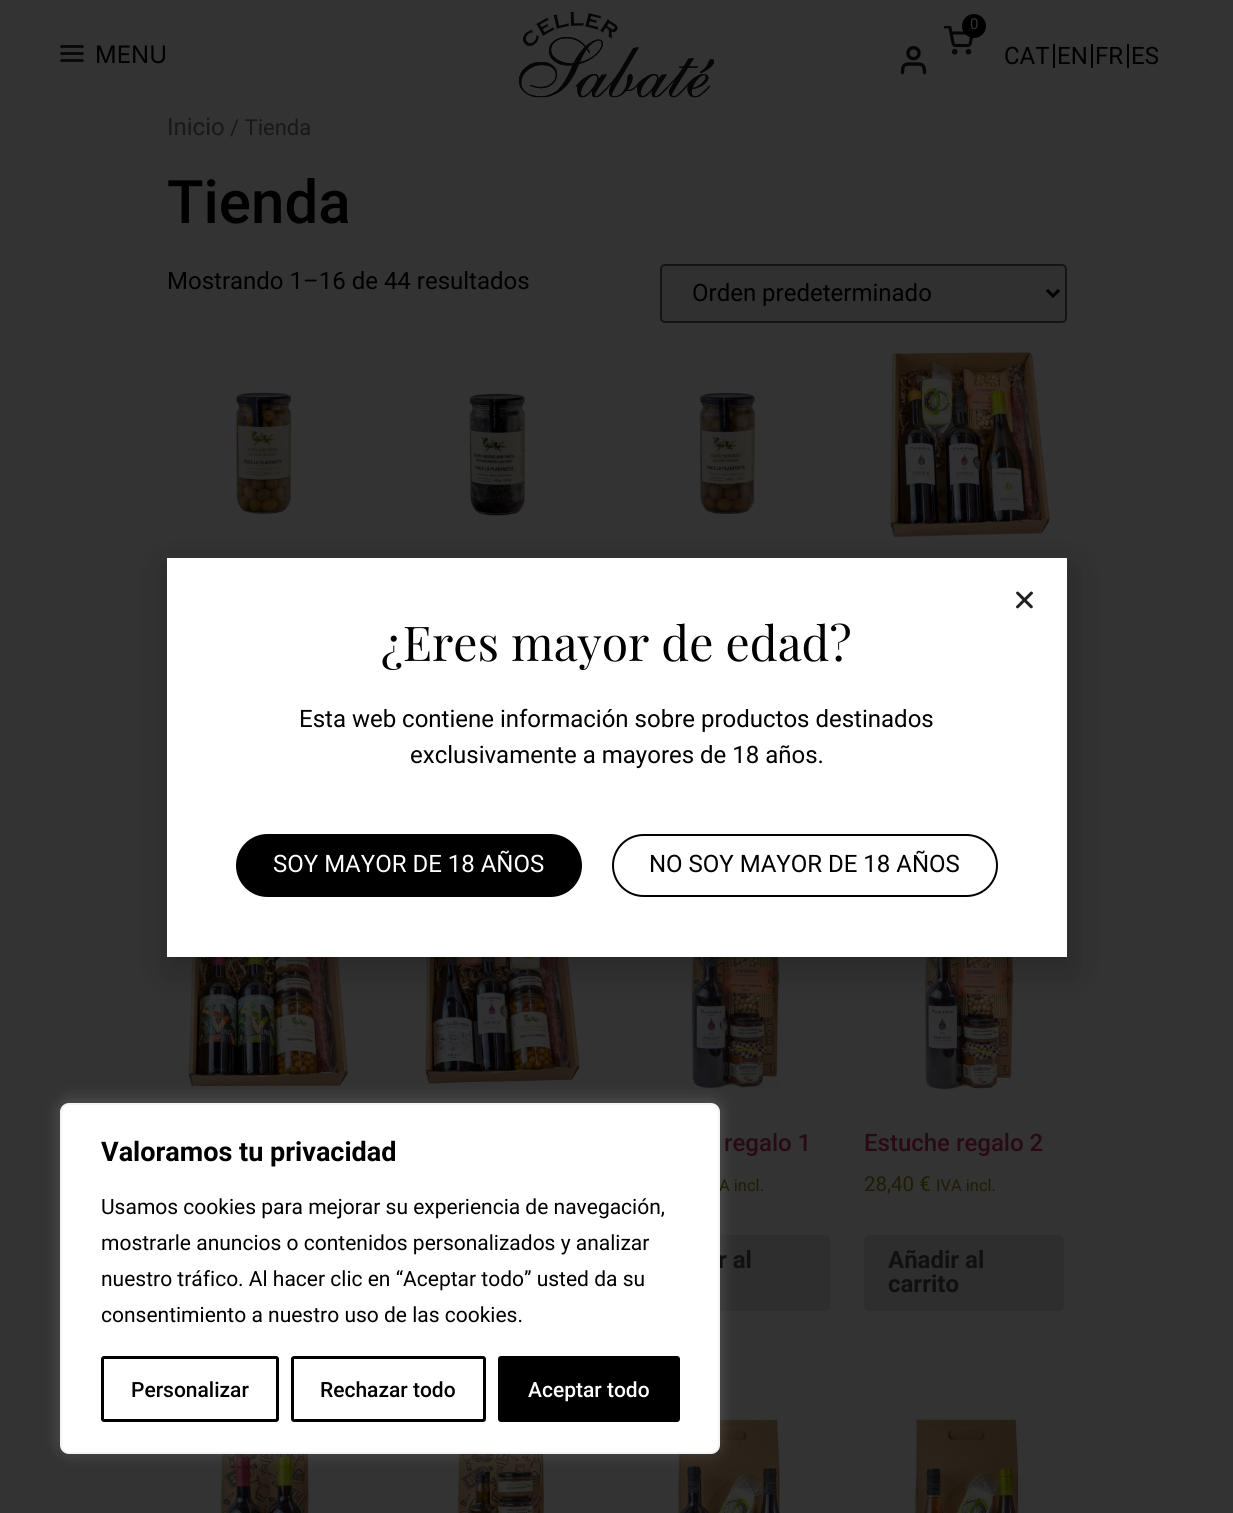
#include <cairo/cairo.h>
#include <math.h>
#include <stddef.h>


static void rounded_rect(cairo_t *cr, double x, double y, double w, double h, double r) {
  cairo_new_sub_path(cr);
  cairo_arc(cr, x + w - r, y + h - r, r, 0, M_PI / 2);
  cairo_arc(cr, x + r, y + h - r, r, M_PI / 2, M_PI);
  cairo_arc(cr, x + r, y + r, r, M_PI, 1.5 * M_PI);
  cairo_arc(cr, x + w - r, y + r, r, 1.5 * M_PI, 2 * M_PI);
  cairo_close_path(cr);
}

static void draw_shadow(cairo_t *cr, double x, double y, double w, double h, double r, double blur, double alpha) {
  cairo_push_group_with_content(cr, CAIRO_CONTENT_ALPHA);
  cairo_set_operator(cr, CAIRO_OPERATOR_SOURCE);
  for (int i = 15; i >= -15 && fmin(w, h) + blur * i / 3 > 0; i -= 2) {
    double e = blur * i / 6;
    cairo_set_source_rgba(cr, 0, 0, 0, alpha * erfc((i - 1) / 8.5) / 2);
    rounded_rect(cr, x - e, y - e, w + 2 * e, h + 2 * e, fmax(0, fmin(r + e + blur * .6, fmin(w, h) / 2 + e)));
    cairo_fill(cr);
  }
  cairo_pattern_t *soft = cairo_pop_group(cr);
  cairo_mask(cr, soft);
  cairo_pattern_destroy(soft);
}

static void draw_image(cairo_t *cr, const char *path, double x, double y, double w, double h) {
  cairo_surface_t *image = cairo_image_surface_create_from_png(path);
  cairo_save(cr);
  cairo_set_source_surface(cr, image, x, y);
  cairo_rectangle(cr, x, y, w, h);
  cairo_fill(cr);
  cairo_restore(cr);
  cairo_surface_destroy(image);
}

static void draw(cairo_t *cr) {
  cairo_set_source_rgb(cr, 51 / 255.0, 51 / 255.0, 51 / 255.0);
  cairo_paint(cr);
  cairo_new_path(cr);
  cairo_move_to(cr, 61.5, 53.5);
  cairo_line_to(cr, 82.5, 53.5);
  cairo_move_to(cr, 61.5, 46.5);
  cairo_line_to(cr, 82.5, 46.5);
  cairo_move_to(cr, 61.5, 60.5);
  cairo_line_to(cr, 82.5, 60.5);
  cairo_set_source_rgb(cr, 6 / 255.0, 6 / 255.0, 6 / 255.0);
  cairo_set_line_width(cr, 2.7);
  cairo_set_line_cap(cr, CAIRO_LINE_CAP_ROUND);
  cairo_set_line_join(cr, CAIRO_LINE_JOIN_ROUND);
  cairo_stroke(cr);
  draw_image(cr, "images/1.png", 519, 12, 195, 86);
  draw_image(cr, "images/2.png", 944, 26, 29, 29);
  cairo_set_source_rgb(cr, 0, 0, 0);
  cairo_arc(cr, 974, 26, 12, 0, 2 * M_PI);
  cairo_fill(cr);
  cairo_new_path(cr);
  cairo_move_to(cr, 924.5, 72.5);
  cairo_curve_to(cr, 924.5, 63.5, 921.5, 64, 913.5, 64);
  cairo_curve_to(cr, 905.5, 64, 902.5, 63.5, 902.5, 72.5);
  cairo_move_to(cr, 919, 53);
  cairo_curve_to(cr, 919, 60.5, 908, 60.5, 908, 53);
  cairo_curve_to(cr, 908, 46, 919, 46, 919, 53);
  cairo_close_path(cr);
  cairo_set_source_rgb(cr, 6 / 255.0, 6 / 255.0, 6 / 255.0);
  cairo_set_line_width(cr, 3.4);
  cairo_stroke(cr);
  cairo_set_source_rgb(cr, 0, 0, 0);
  cairo_rectangle(cr, 1053, 44, 2, 24);
  cairo_fill(cr);
  cairo_rectangle(cr, 1091, 44, 2, 24);
  cairo_fill(cr);
  cairo_rectangle(cr, 1127, 44, 2, 24);
  cairo_fill(cr);
  cairo_set_source_rgb(cr, 48 / 255.0, 48 / 255.0, 48 / 255.0);
  rounded_rect(cr, 661, 265, 405, 57, 4);
  cairo_fill_preserve(cr);
  cairo_set_source_rgb(cr, 20 / 255.0, 20 / 255.0, 20 / 255.0);
  cairo_set_line_width(cr, 2);
  cairo_set_line_cap(cr, CAIRO_LINE_CAP_BUTT);
  cairo_set_line_join(cr, CAIRO_LINE_JOIN_MITER);
  cairo_stroke(cr);
  cairo_new_path(cr);
  cairo_move_to(cr, 1047, 290);
  cairo_line_to(cr, 1053, 296);
  cairo_line_to(cr, 1059, 290);
  cairo_set_source_rgb(cr, 0, 0, 0);
  cairo_set_line_width(cr, 3);
  cairo_stroke(cr);
  draw_image(cr, "images/3.png", 236, 392, 56, 122);
  draw_image(cr, "images/4.png", 469, 393, 56, 123);
  draw_image(cr, "images/5.png", 699, 392, 56, 122);
  draw_image(cr, "images/6.png", 890, 352, 160, 186);
  draw_image(cr, "images/7.png", 188, 957, 160, 130);
  draw_image(cr, "images/8.png", 425, 957, 155, 127);
  draw_image(cr, "images/9.png", 690, 957, 90, 133);
  cairo_set_source_rgb(cr, 47 / 255.0, 46 / 255.0, 47 / 255.0);
  rounded_rect(cr, 632, 1235, 198, 76, 5);
  cairo_fill(cr);
  draw_image(cr, "images/10.png", 924, 957, 90, 133);
  rounded_rect(cr, 864, 1235, 200, 76, 5);
  cairo_fill(cr);
  draw_image(cr, "images/11.png", 220, 1454, 89, 59);
  draw_image(cr, "images/12.png", 457, 1454, 88, 59);
  draw_image(cr, "images/13.png", 677, 1418, 104, 95);
  draw_image(cr, "images/14.png", 914, 1418, 110, 95);
  cairo_set_source_rgb(cr, 0, 0, 0);
  draw_shadow(cr, 165, 566, 909, 408, 0, 17, 0.2);
  cairo_set_source_rgb(cr, 1, 1, 1);
  cairo_rectangle(cr, 167, 558, 900, 399);
  cairo_fill(cr);
  draw_image(cr, "images/15.png", 1016, 591, 17, 18);
  cairo_set_source_rgb(cr, 0, 0, 0);
  rounded_rect(cr, 237, 835, 344, 61, 30.5);
  cairo_fill_preserve(cr);
  cairo_set_line_width(cr, 2);
  cairo_stroke(cr);
  rounded_rect(cr, 613, 835, 384, 61, 30.5);
  cairo_stroke(cr);
  cairo_set_source_rgb(cr, 172 / 255.0, 171 / 255.0, 171 / 255.0);
  draw_shadow(cr, 60, 1101, 660, 351, 9, 7.5, 0.3);
  cairo_select_font_face(cr, "Inter", CAIRO_FONT_SLANT_NORMAL, CAIRO_FONT_WEIGHT_NORMAL);
  cairo_set_font_size(cr, 24);
  cairo_set_source_rgb(cr, 0, 0, 0);
  cairo_move_to(cr, 95, 63);
  cairo_show_text(cr, "MENU");
  cairo_select_font_face(cr, "Roboto", CAIRO_FONT_SLANT_NORMAL, CAIRO_FONT_WEIGHT_NORMAL);
  cairo_set_font_size(cr, 15);
  cairo_set_source_rgb(cr, 51 / 255.0, 51 / 255.0, 51 / 255.0);
  cairo_move_to(cr, 970, 29);
  cairo_show_text(cr, "0");
  cairo_set_font_size(cr, 24);
  cairo_set_source_rgb(cr, 0, 0, 0);
  cairo_move_to(cr, 1004, 64);
  cairo_show_text(cr, "CAT");
  cairo_move_to(cr, 1057, 64);
  cairo_show_text(cr, "EN");
  cairo_move_to(cr, 1095, 64);
  cairo_show_text(cr, "FR");
  cairo_move_to(cr, 1131, 64);
  cairo_show_text(cr, "ES");
  cairo_set_source_rgb(cr, 24 / 255.0, 24 / 255.0, 24 / 255.0);
  cairo_move_to(cr, 167, 135);
  cairo_show_text(cr, "Inicio");
  cairo_set_font_size(cr, 22);
  cairo_move_to(cr, 230, 135);
  cairo_show_text(cr, "/ Tienda");
  cairo_select_font_face(cr, "Roboto Medium", CAIRO_FONT_SLANT_NORMAL, CAIRO_FONT_WEIGHT_NORMAL);
  cairo_set_font_size(cr, 60);
  cairo_set_source_rgb(cr, 0, 0, 0);
  cairo_move_to(cr, 167, 223);
  cairo_show_text(cr, "Tienda");
  cairo_select_font_face(cr, "Roboto", CAIRO_FONT_SLANT_NORMAL, CAIRO_FONT_WEIGHT_NORMAL);
  cairo_set_font_size(cr, 24);
  cairo_move_to(cr, 167, 289);
  cairo_show_text(cr, "Mostrando 1–16 de 44 resultados");
  cairo_move_to(cr, 692, 301);
  cairo_show_text(cr, "Orden predeterminado");
  cairo_select_font_face(cr, "Roboto Medium", CAIRO_FONT_SLANT_NORMAL, CAIRO_FONT_WEIGHT_NORMAL);
  cairo_set_source_rgb(cr, 41 / 255.0, 10 / 255.0, 20 / 255.0);
  cairo_move_to(cr, 724, 1151);
  cairo_show_text(cr, "regalo 1");
  cairo_select_font_face(cr, "Roboto", CAIRO_FONT_SLANT_NORMAL, CAIRO_FONT_WEIGHT_NORMAL);
  cairo_set_font_size(cr, 16.5);
  cairo_set_source_rgb(cr, 30 / 255.0, 28 / 255.0, 2 / 255.0);
  cairo_move_to(cr, 719, 1191);
  cairo_show_text(cr, "A incl.");
  cairo_select_font_face(cr, "Roboto", CAIRO_FONT_SLANT_NORMAL, CAIRO_FONT_WEIGHT_BOLD);
  cairo_set_font_size(cr, 24);
  cairo_set_source_rgb(cr, 16 / 255.0, 16 / 255.0, 16 / 255.0);
  cairo_move_to(cr, 718, 1268);
  cairo_show_text(cr, "r al");
  cairo_select_font_face(cr, "Roboto Medium", CAIRO_FONT_SLANT_NORMAL, CAIRO_FONT_WEIGHT_NORMAL);
  cairo_set_source_rgb(cr, 41 / 255.0, 10 / 255.0, 20 / 255.0);
  cairo_move_to(cr, 864, 1151);
  cairo_show_text(cr, "Estuche regalo 2");
  cairo_select_font_face(cr, "Roboto", CAIRO_FONT_SLANT_NORMAL, CAIRO_FONT_WEIGHT_NORMAL);
  cairo_set_font_size(cr, 20.5);
  cairo_set_source_rgb(cr, 30 / 255.0, 28 / 255.0, 2 / 255.0);
  cairo_move_to(cr, 864, 1191);
  cairo_show_text(cr, "28,40 €");
  cairo_set_font_size(cr, 16.5);
  cairo_move_to(cr, 936, 1191);
  cairo_show_text(cr, "IVA incl.");
  cairo_select_font_face(cr, "Roboto", CAIRO_FONT_SLANT_NORMAL, CAIRO_FONT_WEIGHT_BOLD);
  cairo_set_font_size(cr, 24);
  cairo_set_source_rgb(cr, 16 / 255.0, 16 / 255.0, 16 / 255.0);
  cairo_move_to(cr, 888, 1268);
  cairo_show_text(cr, "Añadir al");
  cairo_move_to(cr, 888, 1292);
  cairo_show_text(cr, "carrito");
  cairo_select_font_face(cr, "Playfair Display", CAIRO_FONT_SLANT_NORMAL, CAIRO_FONT_WEIGHT_NORMAL);
  cairo_set_font_size(cr, 48);
  cairo_set_source_rgb(cr, 0, 0, 0);
  cairo_move_to(cr, 381, 661);
  cairo_show_text(cr, "¿Eres mayor de edad?");
  cairo_select_font_face(cr, "Roboto", CAIRO_FONT_SLANT_NORMAL, CAIRO_FONT_WEIGHT_NORMAL);
  cairo_set_font_size(cr, 24);
  cairo_move_to(cr, 299, 727);
  cairo_show_text(cr, "Esta web contiene información sobre productos destinados");
  cairo_move_to(cr, 410, 763);
  cairo_show_text(cr, "exclusivamente a mayores de 18 años.");
  cairo_set_source_rgb(cr, 1, 1, 1);
  cairo_move_to(cr, 273, 872);
  cairo_show_text(cr, "SOY MAYOR DE 18 AÑOS");
  cairo_set_source_rgb(cr, 0, 0, 0);
  cairo_move_to(cr, 649, 872);
  cairo_show_text(cr, "NO SOY MAYOR DE 18 AÑOS");
  cairo_set_source_rgb(cr, 1, 1, 1);
  rounded_rect(cr, 61, 1104, 658, 349, 8);
  cairo_fill_preserve(cr);
  cairo_set_source_rgb(cr, 244 / 255.0, 244 / 255.0, 244 / 255.0);
  cairo_stroke(cr);
  cairo_select_font_face(cr, "Roboto", CAIRO_FONT_SLANT_NORMAL, CAIRO_FONT_WEIGHT_BOLD);
  cairo_set_font_size(cr, 27);
  cairo_set_source_rgb(cr, 0, 0, 0);
  cairo_move_to(cr, 101, 1161);
  cairo_show_text(cr, "Valoramos tu privacidad");
  cairo_select_font_face(cr, "Roboto", CAIRO_FONT_SLANT_NORMAL, CAIRO_FONT_WEIGHT_NORMAL);
  cairo_set_font_size(cr, 21);
  cairo_move_to(cr, 101, 1214);
  cairo_show_text(cr, "Usamos cookies para mejorar su experiencia de navegación,");
  cairo_move_to(cr, 101, 1250);
  cairo_show_text(cr, "mostrarle anuncios o contenidos personalizados y analizar");
  cairo_move_to(cr, 101, 1286);
  cairo_show_text(cr, "nuestro tráfico. Al hacer clic en “Aceptar todo” usted da su");
  cairo_move_to(cr, 101, 1322);
  cairo_show_text(cr, "consentimiento a nuestro uso de las cookies.");
  rounded_rect(cr, 102.5, 1357.5, 175, 63, 1.5);
  cairo_set_line_width(cr, 3);
  cairo_stroke(cr);
  cairo_select_font_face(cr, "Roboto Medium", CAIRO_FONT_SLANT_NORMAL, CAIRO_FONT_WEIGHT_NORMAL);
  cairo_move_to(cr, 131, 1397);
  cairo_show_text(cr, "Personalizar");
  rounded_rect(cr, 292.5, 1357.5, 192, 63, 1.5);
  cairo_stroke(cr);
  cairo_move_to(cr, 320, 1397);
  cairo_show_text(cr, "Rechazar todo");
  rounded_rect(cr, 499.5, 1357.5, 179, 63, 1.5);
  cairo_fill_preserve(cr);
  cairo_stroke(cr);
  cairo_set_source_rgb(cr, 1, 1, 1);
  cairo_move_to(cr, 528, 1397);
  cairo_show_text(cr, "Aceptar todo");
}

int main(void) {
  cairo_surface_t *surface = cairo_image_surface_create(CAIRO_FORMAT_RGB24, 1233, 1513);
  cairo_t *cr = cairo_create(surface);
  cairo_font_options_t *options = cairo_font_options_create();
  cairo_font_options_set_hint_metrics(options, CAIRO_HINT_METRICS_OFF);
  cairo_font_options_set_hint_style(options, CAIRO_HINT_STYLE_NONE);
  cairo_set_font_options(cr, options);
  cairo_set_miter_limit(cr, 4);
  draw(cr);
  cairo_surface_write_to_png(surface, "out.png");
  cairo_font_options_destroy(options);
  cairo_destroy(cr);
  cairo_surface_destroy(surface);
  return 0;
}
